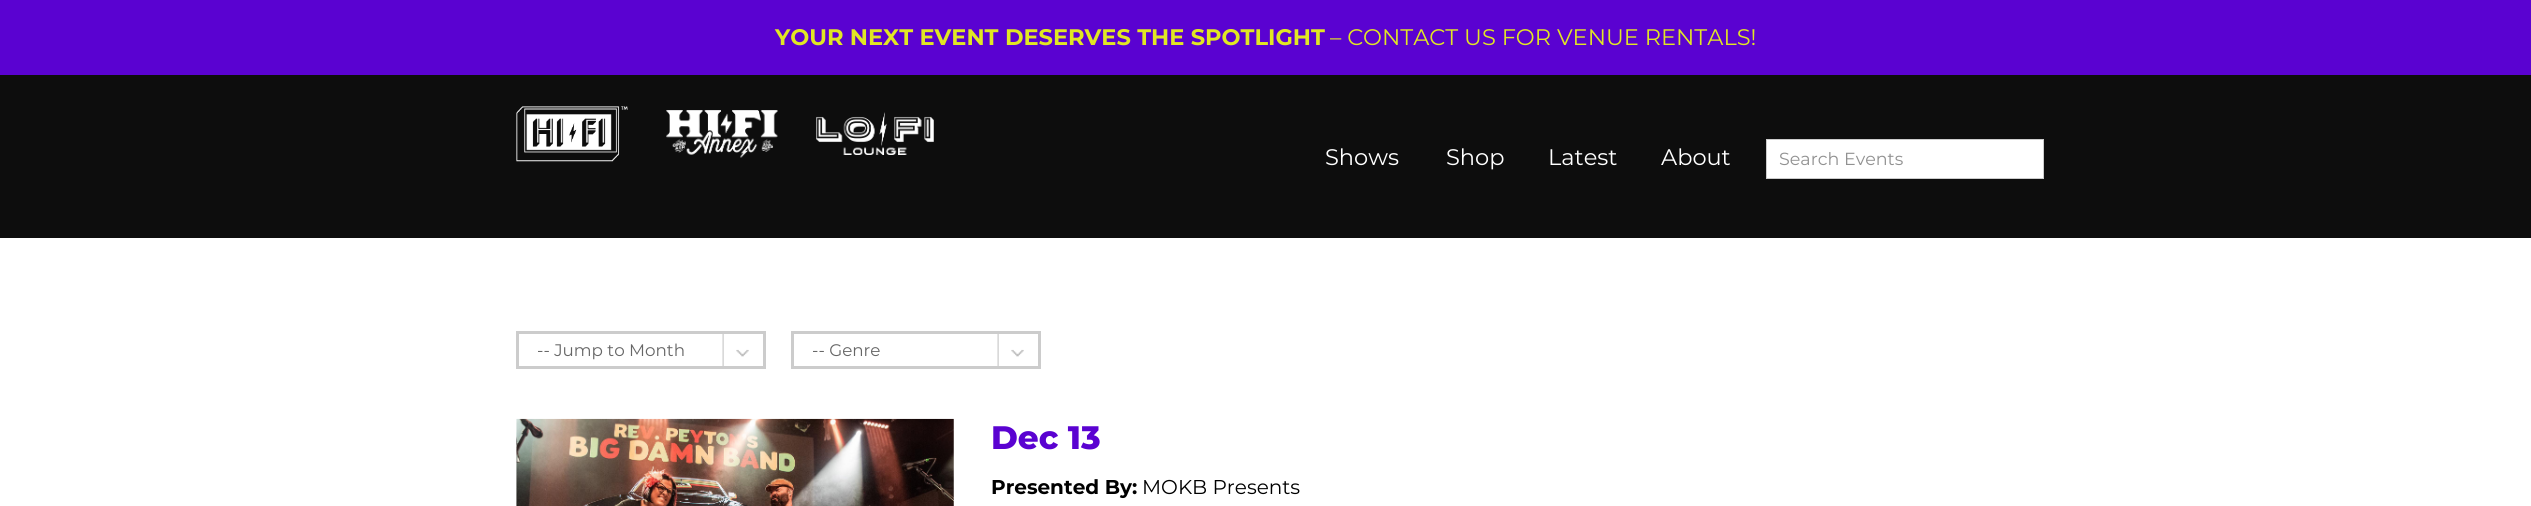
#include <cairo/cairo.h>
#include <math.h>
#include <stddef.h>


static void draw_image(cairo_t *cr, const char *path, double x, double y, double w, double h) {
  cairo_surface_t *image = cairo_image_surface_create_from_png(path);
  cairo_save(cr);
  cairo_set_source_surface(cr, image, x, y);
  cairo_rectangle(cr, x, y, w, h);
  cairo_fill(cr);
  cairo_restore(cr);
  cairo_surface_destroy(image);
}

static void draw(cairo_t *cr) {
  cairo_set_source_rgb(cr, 1, 1, 1);
  cairo_paint(cr);
  cairo_set_source_rgb(cr, 90 / 255.0, 2 / 255.0, 209 / 255.0);
  cairo_rectangle(cr, 0, 0, 2531, 75);
  cairo_fill(cr);
  cairo_set_source_rgb(cr, 13 / 255.0, 13 / 255.0, 13 / 255.0);
  cairo_rectangle(cr, 0, 75, 2531, 163);
  cairo_fill(cr);
  draw_image(cr, "images/1.png", 516, 106, 112, 56);
  draw_image(cr, "images/2.png", 666, 110, 112, 48);
  draw_image(cr, "images/3.png", 816, 112, 118, 43);
  cairo_set_source_rgb(cr, 1, 1, 1);
  cairo_rectangle(cr, 1766.5, 139.5, 277, 39);
  cairo_fill_preserve(cr);
  cairo_set_source_rgb(cr, 204 / 255.0, 204 / 255.0, 204 / 255.0);
  cairo_set_line_width(cr, 1);
  cairo_stroke(cr);
  draw_image(cr, "images/4.png", 722, 334, 27, 32);
  cairo_rectangle(cr, 517.5, 332.5, 247, 35);
  cairo_set_line_width(cr, 3);
  cairo_stroke(cr);
  draw_image(cr, "images/5.png", 997, 334, 27, 32);
  cairo_rectangle(cr, 792.5, 332.5, 247, 35);
  cairo_stroke(cr);
  draw_image(cr, "images/6.png", 516, 418, 438, 88);
  cairo_select_font_face(cr, "Montserrat", CAIRO_FONT_SLANT_NORMAL, CAIRO_FONT_WEIGHT_BOLD);
  cairo_set_font_size(cr, 22.5);
  cairo_set_source_rgb(cr, 225 / 255.0, 231 / 255.0, 35 / 255.0);
  cairo_move_to(cr, 775, 45);
  cairo_show_text(cr, "YOUR NEXT EVENT DESERVES THE SPOTLIGHT");
  cairo_select_font_face(cr, "Montserrat", CAIRO_FONT_SLANT_NORMAL, CAIRO_FONT_WEIGHT_NORMAL);
  cairo_move_to(cr, 1330, 45);
  cairo_show_text(cr, "– CONTACT US FOR VENUE RENTALS!");
  cairo_set_source_rgb(cr, 1, 1, 1);
  cairo_move_to(cr, 1325, 165);
  cairo_show_text(cr, "Shows");
  cairo_move_to(cr, 1446, 165);
  cairo_show_text(cr, "Shop");
  cairo_move_to(cr, 1548, 165);
  cairo_show_text(cr, "Latest");
  cairo_move_to(cr, 1661, 165);
  cairo_show_text(cr, "About");
  cairo_set_font_size(cr, 17.5);
  cairo_set_source_rgb(cr, 145 / 255.0, 145 / 255.0, 145 / 255.0);
  cairo_move_to(cr, 1779, 165);
  cairo_show_text(cr, "Search Events");
  cairo_set_font_size(cr, 16.75);
  cairo_set_source_rgb(cr, 102 / 255.0, 102 / 255.0, 102 / 255.0);
  cairo_move_to(cr, 537, 356);
  cairo_show_text(cr, "-- Jump to Month");
  cairo_move_to(cr, 812, 356);
  cairo_show_text(cr, "-- Genre");
  cairo_select_font_face(cr, "Montserrat ExtraBold", CAIRO_FONT_SLANT_NORMAL, CAIRO_FONT_WEIGHT_NORMAL);
  cairo_set_font_size(cr, 32.5);
  cairo_set_source_rgb(cr, 90 / 255.0, 2 / 255.0, 209 / 255.0);
  cairo_move_to(cr, 991, 449);
  cairo_show_text(cr, "Dec 13");
  cairo_select_font_face(cr, "Montserrat", CAIRO_FONT_SLANT_NORMAL, CAIRO_FONT_WEIGHT_BOLD);
  cairo_set_font_size(cr, 20);
  cairo_set_source_rgb(cr, 0, 0, 0);
  cairo_move_to(cr, 991, 494);
  cairo_show_text(cr, "Presented By:");
  cairo_select_font_face(cr, "Montserrat", CAIRO_FONT_SLANT_NORMAL, CAIRO_FONT_WEIGHT_NORMAL);
  cairo_move_to(cr, 1142, 494);
  cairo_show_text(cr, "MOKB Presents");
}

int main(void) {
  cairo_surface_t *surface = cairo_image_surface_create(CAIRO_FORMAT_RGB24, 2531, 506);
  cairo_t *cr = cairo_create(surface);
  cairo_font_options_t *options = cairo_font_options_create();
  cairo_font_options_set_hint_metrics(options, CAIRO_HINT_METRICS_OFF);
  cairo_font_options_set_hint_style(options, CAIRO_HINT_STYLE_NONE);
  cairo_set_font_options(cr, options);
  cairo_set_miter_limit(cr, 4);
  draw(cr);
  cairo_surface_write_to_png(surface, "out.png");
  cairo_font_options_destroy(options);
  cairo_destroy(cr);
  cairo_surface_destroy(surface);
  return 0;
}
